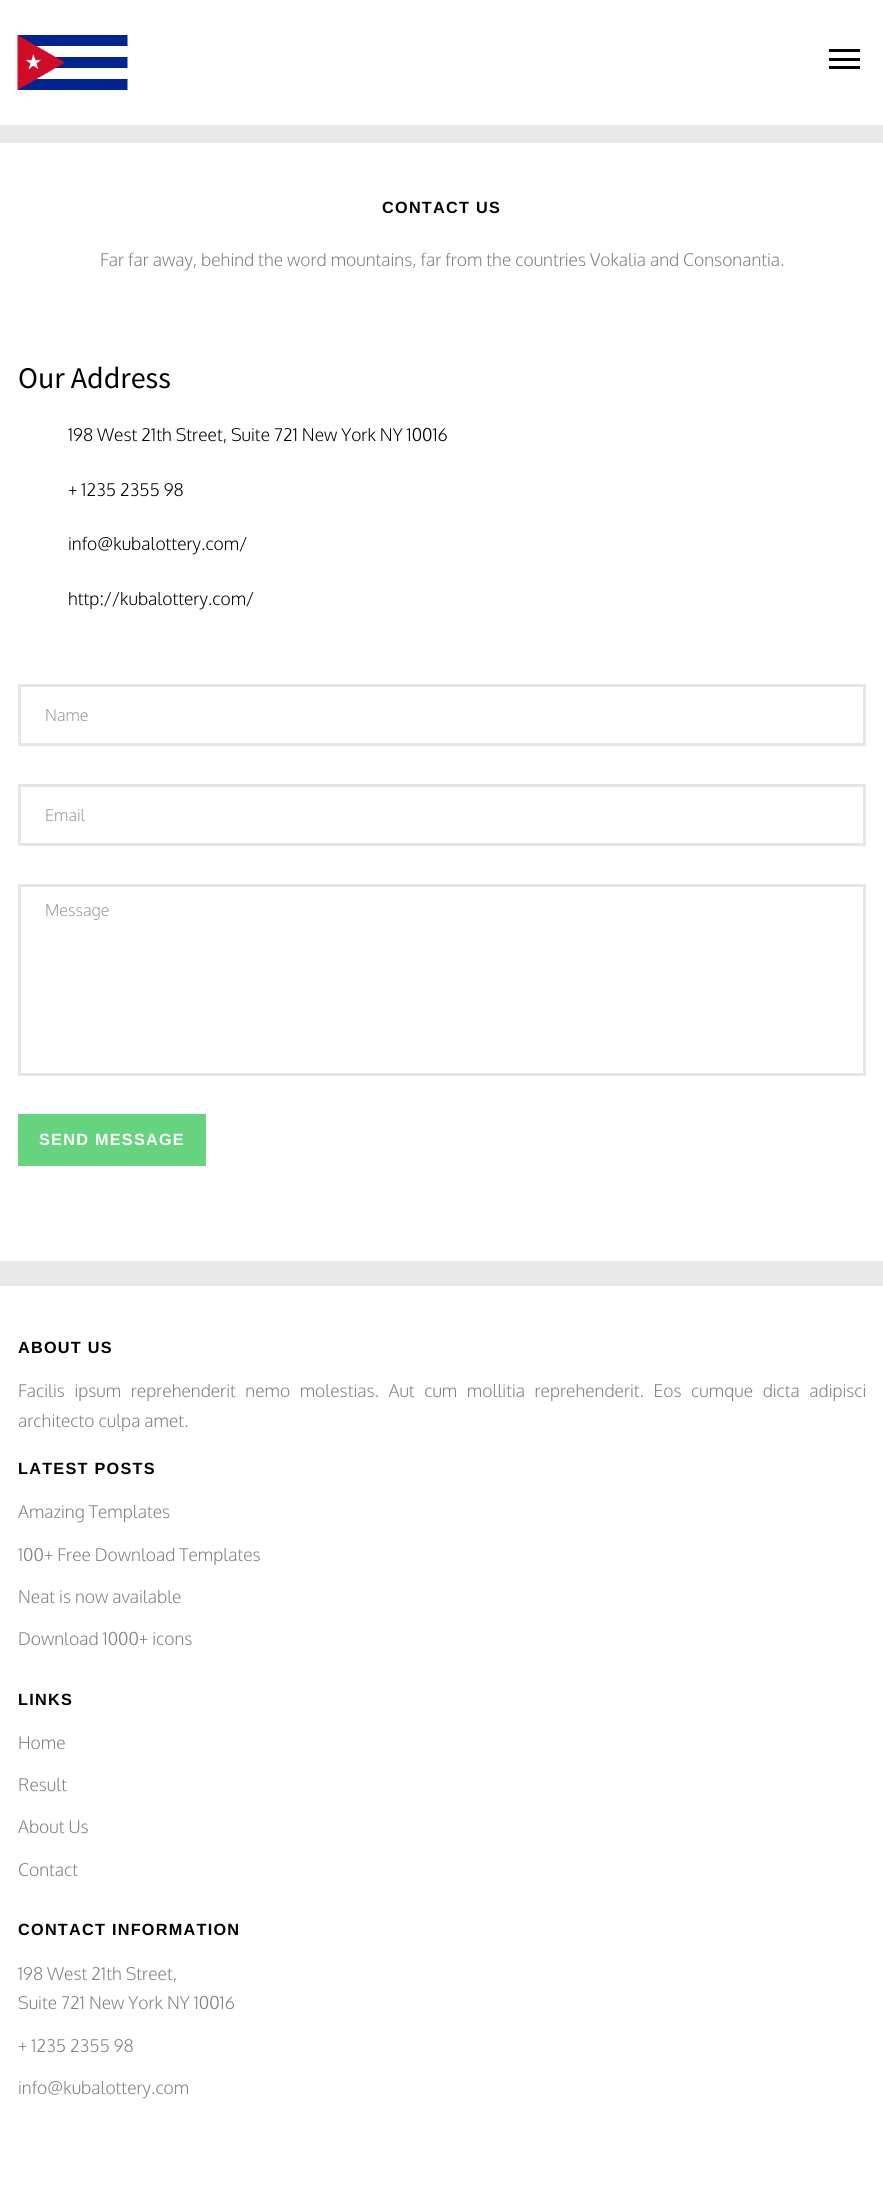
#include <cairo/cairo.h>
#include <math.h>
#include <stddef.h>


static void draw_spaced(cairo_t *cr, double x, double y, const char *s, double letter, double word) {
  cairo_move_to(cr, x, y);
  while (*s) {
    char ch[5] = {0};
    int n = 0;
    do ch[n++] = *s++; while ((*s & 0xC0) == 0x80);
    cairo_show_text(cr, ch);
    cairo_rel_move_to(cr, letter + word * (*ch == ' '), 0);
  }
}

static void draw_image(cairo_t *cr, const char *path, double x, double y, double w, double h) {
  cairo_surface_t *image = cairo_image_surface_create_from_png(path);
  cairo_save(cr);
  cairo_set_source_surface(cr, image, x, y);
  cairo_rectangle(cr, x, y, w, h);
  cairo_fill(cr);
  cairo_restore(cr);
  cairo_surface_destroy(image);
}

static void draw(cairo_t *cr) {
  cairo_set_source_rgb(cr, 232 / 255.0, 232 / 255.0, 232 / 255.0);
  cairo_paint(cr);
  cairo_set_source_rgb(cr, 1, 1, 1);
  cairo_rectangle(cr, 0, 0, 883, 125);
  cairo_fill(cr);
  draw_image(cr, "images/1.png", 17, 35, 111, 55);
  cairo_set_source_rgb(cr, 0, 0, 0);
  cairo_rectangle(cr, 829, 58, 31, 3);
  cairo_fill(cr);
  cairo_rectangle(cr, 829, 49, 31, 3);
  cairo_fill(cr);
  cairo_rectangle(cr, 829, 66, 31, 3);
  cairo_fill(cr);
  cairo_set_source_rgb(cr, 1, 1, 1);
  cairo_rectangle(cr, 0, 143, 883, 1118);
  cairo_fill(cr);
  cairo_rectangle(cr, 19.5, 685.5, 845, 59);
  cairo_set_source_rgb(cr, 230 / 255.0, 230 / 255.0, 230 / 255.0);
  cairo_set_line_width(cr, 3);
  cairo_stroke(cr);
  cairo_rectangle(cr, 19.5, 785.5, 845, 59);
  cairo_stroke(cr);
  cairo_rectangle(cr, 19.5, 885.5, 845, 189);
  cairo_stroke(cr);
  cairo_set_source_rgb(cr, 102 / 255.0, 211 / 255.0, 126 / 255.0);
  cairo_rectangle(cr, 19.5, 1115.5, 185, 49);
  cairo_fill_preserve(cr);
  cairo_stroke(cr);
  cairo_set_source_rgb(cr, 1, 1, 1);
  cairo_rectangle(cr, 0, 1286, 883, 918);
  cairo_fill(cr);
  cairo_select_font_face(cr, "Liberation Sans", CAIRO_FONT_SLANT_NORMAL, CAIRO_FONT_WEIGHT_BOLD);
  cairo_set_font_size(cr, 16.25);
  cairo_set_source_rgb(cr, 0, 0, 0);
  draw_spaced(cr, 382, 213, "CONTACT US", 1.25, 0);
  cairo_select_font_face(cr, "Oxygen Light", CAIRO_FONT_SLANT_NORMAL, CAIRO_FONT_WEIGHT_NORMAL);
  cairo_set_font_size(cr, 17.5);
  cairo_set_source_rgb(cr, 128 / 255.0, 128 / 255.0, 128 / 255.0);
  cairo_move_to(cr, 100, 266);
  cairo_show_text(cr, "Far far away, behind the word mountains, far from the countries Vokalia and Consonantia.");
  cairo_select_font_face(cr, "Source Sans Pro", CAIRO_FONT_SLANT_NORMAL, CAIRO_FONT_WEIGHT_NORMAL);
  cairo_set_font_size(cr, 30);
  cairo_set_source_rgb(cr, 0, 0, 0);
  cairo_move_to(cr, 18, 388);
  cairo_show_text(cr, "Our Address");
  cairo_select_font_face(cr, "Oxygen Light", CAIRO_FONT_SLANT_NORMAL, CAIRO_FONT_WEIGHT_NORMAL);
  cairo_set_font_size(cr, 17.5);
  cairo_move_to(cr, 68, 441);
  cairo_show_text(cr, "198 West 21th Street, Suite 721 New York NY 10016");
  cairo_move_to(cr, 68, 496);
  cairo_show_text(cr, "+ 1235 2355 98");
  cairo_move_to(cr, 68, 550);
  cairo_show_text(cr, "info@kubalottery.com/");
  cairo_move_to(cr, 68, 605);
  cairo_show_text(cr, "http://kubalottery.com/");
  cairo_set_font_size(cr, 16.25);
  cairo_set_source_rgb(cr, 153 / 255.0, 153 / 255.0, 153 / 255.0);
  cairo_move_to(cr, 45, 721);
  cairo_show_text(cr, "Name");
  cairo_move_to(cr, 45, 821);
  cairo_show_text(cr, "Email");
  cairo_move_to(cr, 45, 916);
  cairo_show_text(cr, "Message");
  cairo_select_font_face(cr, "Liberation Sans", CAIRO_FONT_SLANT_NORMAL, CAIRO_FONT_WEIGHT_BOLD);
  cairo_set_source_rgb(cr, 1, 1, 1);
  draw_spaced(cr, 39, 1145, "SEND MESSAGE", 1.25, 0);
  cairo_set_source_rgb(cr, 0, 0, 0);
  draw_spaced(cr, 18, 1353, "ABOUT US", 1.25, 0);
  cairo_select_font_face(cr, "Oxygen Light", CAIRO_FONT_SLANT_NORMAL, CAIRO_FONT_WEIGHT_NORMAL);
  cairo_set_font_size(cr, 17.5);
  cairo_set_source_rgb(cr, 128 / 255.0, 128 / 255.0, 128 / 255.0);
  draw_spaced(cr, 18, 1397, "Facilis ipsum reprehenderit nemo molestias. Aut cum mollitia reprehenderit. Eos cumque dicta adipisci", 0, 5.6);
  cairo_move_to(cr, 18, 1427);
  cairo_show_text(cr, "architecto culpa amet.");
  cairo_select_font_face(cr, "Liberation Sans", CAIRO_FONT_SLANT_NORMAL, CAIRO_FONT_WEIGHT_BOLD);
  cairo_set_font_size(cr, 16.25);
  cairo_set_source_rgb(cr, 0, 0, 0);
  draw_spaced(cr, 18, 1474, "LATEST POSTS", 1.25, 0);
  cairo_select_font_face(cr, "Oxygen Light", CAIRO_FONT_SLANT_NORMAL, CAIRO_FONT_WEIGHT_NORMAL);
  cairo_set_font_size(cr, 17.5);
  cairo_set_source_rgb(cr, 128 / 255.0, 128 / 255.0, 128 / 255.0);
  cairo_move_to(cr, 18, 1518);
  cairo_show_text(cr, "Amazing Templates");
  cairo_move_to(cr, 18, 1561);
  cairo_show_text(cr, "100+ Free Download Templates");
  cairo_move_to(cr, 18, 1603);
  cairo_show_text(cr, "Neat is now available");
  cairo_move_to(cr, 18, 1645);
  cairo_show_text(cr, "Download 1000+ icons");
  cairo_select_font_face(cr, "Liberation Sans", CAIRO_FONT_SLANT_NORMAL, CAIRO_FONT_WEIGHT_BOLD);
  cairo_set_font_size(cr, 16.25);
  cairo_set_source_rgb(cr, 0, 0, 0);
  draw_spaced(cr, 18, 1705, "LINKS", 1.25, 0);
  cairo_select_font_face(cr, "Oxygen Light", CAIRO_FONT_SLANT_NORMAL, CAIRO_FONT_WEIGHT_NORMAL);
  cairo_set_font_size(cr, 17.5);
  cairo_set_source_rgb(cr, 128 / 255.0, 128 / 255.0, 128 / 255.0);
  cairo_move_to(cr, 18, 1749);
  cairo_show_text(cr, "Home");
  cairo_move_to(cr, 18, 1791);
  cairo_show_text(cr, "Result");
  cairo_move_to(cr, 18, 1833);
  cairo_show_text(cr, "About Us");
  cairo_move_to(cr, 18, 1876);
  cairo_show_text(cr, "Contact");
  cairo_select_font_face(cr, "Liberation Sans", CAIRO_FONT_SLANT_NORMAL, CAIRO_FONT_WEIGHT_BOLD);
  cairo_set_font_size(cr, 16.25);
  cairo_set_source_rgb(cr, 0, 0, 0);
  draw_spaced(cr, 18, 1935, "CONTACT INFORMATION", 1.25, 0);
  cairo_select_font_face(cr, "Oxygen Light", CAIRO_FONT_SLANT_NORMAL, CAIRO_FONT_WEIGHT_NORMAL);
  cairo_set_font_size(cr, 17.5);
  cairo_set_source_rgb(cr, 128 / 255.0, 128 / 255.0, 128 / 255.0);
  cairo_move_to(cr, 18, 1980);
  cairo_show_text(cr, "198 West 21th Street,");
  cairo_move_to(cr, 18, 2009);
  cairo_show_text(cr, "Suite 721 New York NY 10016");
  cairo_move_to(cr, 18, 2052);
  cairo_show_text(cr, "+ 1235 2355 98");
  cairo_move_to(cr, 18, 2094);
  cairo_show_text(cr, "info@kubalottery.com");
}

int main(void) {
  cairo_surface_t *surface = cairo_image_surface_create(CAIRO_FORMAT_RGB24, 883, 2204);
  cairo_t *cr = cairo_create(surface);
  cairo_font_options_t *options = cairo_font_options_create();
  cairo_font_options_set_hint_metrics(options, CAIRO_HINT_METRICS_OFF);
  cairo_font_options_set_hint_style(options, CAIRO_HINT_STYLE_NONE);
  cairo_set_font_options(cr, options);
  cairo_set_miter_limit(cr, 4);
  draw(cr);
  cairo_surface_write_to_png(surface, "out.png");
  cairo_font_options_destroy(options);
  cairo_destroy(cr);
  cairo_surface_destroy(surface);
  return 0;
}
